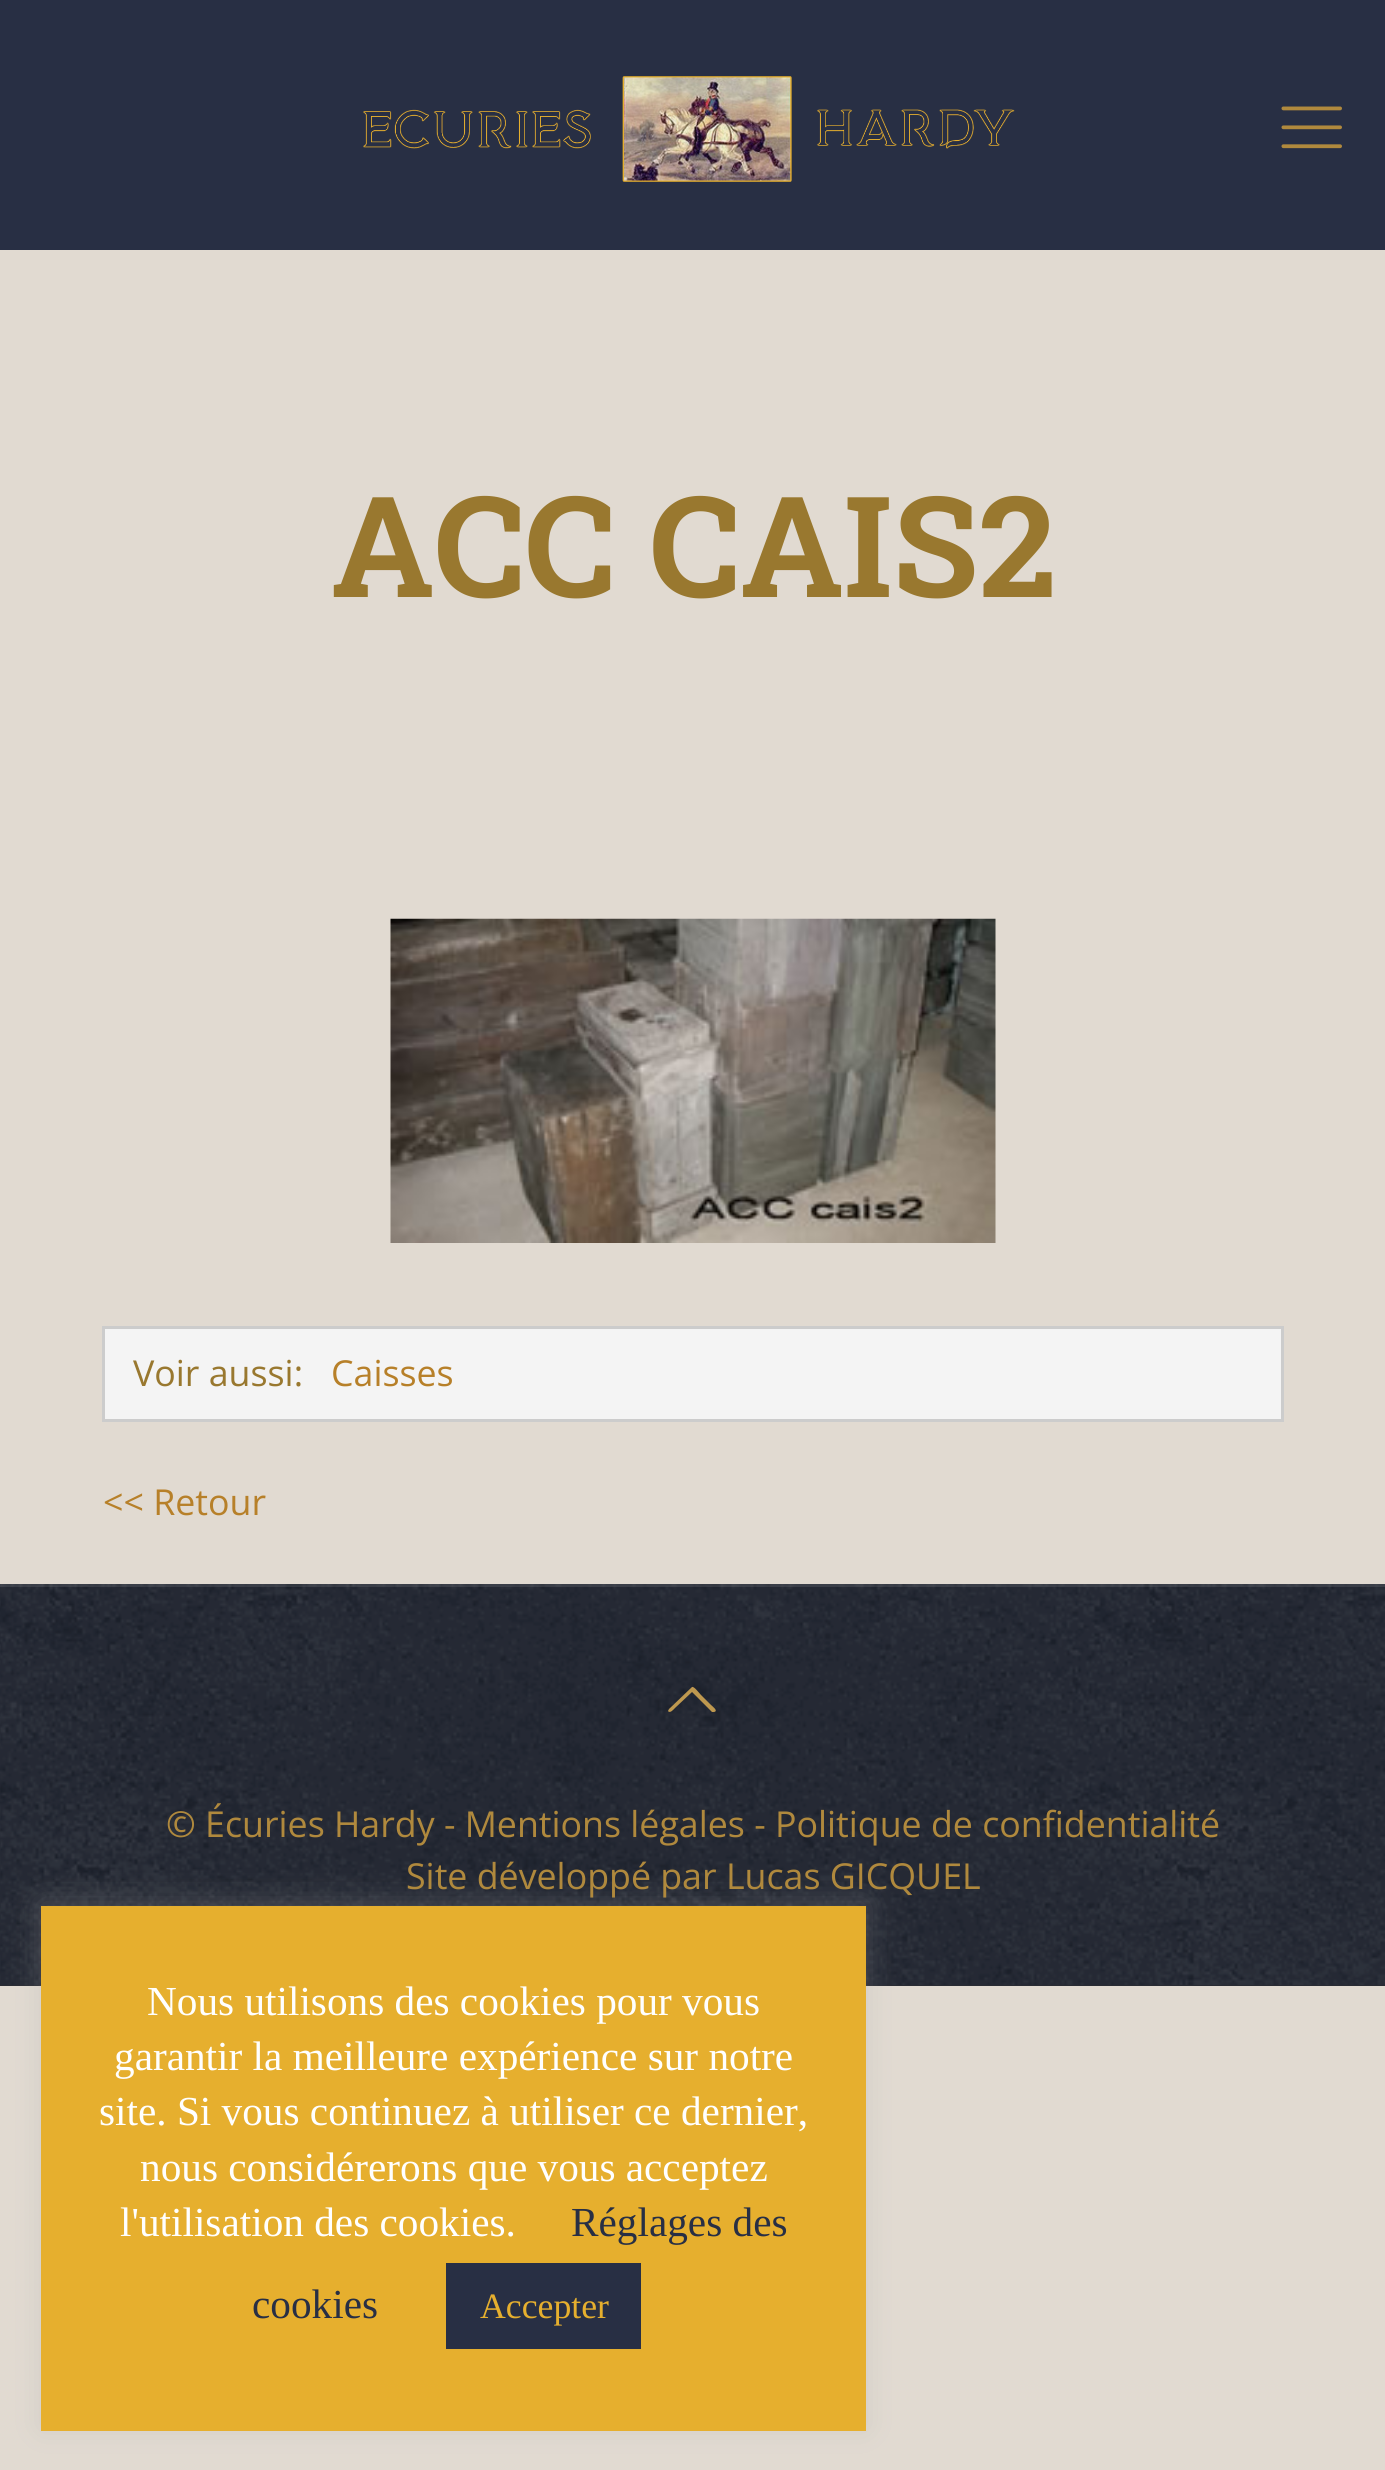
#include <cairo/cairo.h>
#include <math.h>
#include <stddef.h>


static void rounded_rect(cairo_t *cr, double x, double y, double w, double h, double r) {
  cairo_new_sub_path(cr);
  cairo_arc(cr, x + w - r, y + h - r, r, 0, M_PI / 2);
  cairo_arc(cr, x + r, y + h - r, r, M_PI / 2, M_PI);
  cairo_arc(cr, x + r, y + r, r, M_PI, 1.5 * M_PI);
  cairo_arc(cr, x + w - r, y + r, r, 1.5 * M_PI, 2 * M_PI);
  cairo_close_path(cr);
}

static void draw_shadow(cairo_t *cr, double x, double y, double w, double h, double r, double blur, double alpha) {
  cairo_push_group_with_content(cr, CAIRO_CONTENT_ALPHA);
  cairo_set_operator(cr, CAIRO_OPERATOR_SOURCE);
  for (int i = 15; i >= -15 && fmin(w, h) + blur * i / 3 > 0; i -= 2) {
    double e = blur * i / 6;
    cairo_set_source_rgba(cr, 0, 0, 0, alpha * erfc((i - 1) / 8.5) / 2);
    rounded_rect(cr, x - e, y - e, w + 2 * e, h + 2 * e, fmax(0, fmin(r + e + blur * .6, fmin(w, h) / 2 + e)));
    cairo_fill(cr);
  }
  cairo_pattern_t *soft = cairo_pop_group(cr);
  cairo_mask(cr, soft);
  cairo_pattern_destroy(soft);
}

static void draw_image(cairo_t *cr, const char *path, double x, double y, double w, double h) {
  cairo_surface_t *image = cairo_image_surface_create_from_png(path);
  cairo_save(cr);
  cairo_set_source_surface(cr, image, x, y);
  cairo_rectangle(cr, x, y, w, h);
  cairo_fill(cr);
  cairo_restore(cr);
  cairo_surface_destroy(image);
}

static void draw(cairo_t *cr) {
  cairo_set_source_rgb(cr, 225 / 255.0, 218 / 255.0, 209 / 255.0);
  cairo_paint(cr);
  cairo_set_source_rgb(cr, 40 / 255.0, 47 / 255.0, 68 / 255.0);
  cairo_rectangle(cr, 0, 0, 1385, 250);
  cairo_fill(cr);
  draw_image(cr, "images/1.png", 363, 76, 652, 106);
  draw_image(cr, "images/2.png", 1281, 106, 61, 43);
  draw_image(cr, "images/3.png", 390, 918, 606, 325);
  cairo_set_source_rgb(cr, 244 / 255.0, 244 / 255.0, 244 / 255.0);
  cairo_rectangle(cr, 103.5, 1327.5, 1179, 93);
  cairo_fill_preserve(cr);
  cairo_set_source_rgb(cr, 204 / 255.0, 204 / 255.0, 204 / 255.0);
  cairo_set_line_width(cr, 3);
  cairo_stroke(cr);
  cairo_set_source_rgb(cr, 41 / 255.0, 43 / 255.0, 51 / 255.0);
  cairo_rectangle(cr, 0, 1985, 1385, 1);
  cairo_fill(cr);
  draw_image(cr, "images/4.png", 0, 1584, 1385, 401);
  cairo_set_source_rgba(cr, 1, 1, 1, 0.1);
  cairo_rectangle(cr, 0, 1584, 1385, 3);
  cairo_fill(cr);
  cairo_set_source_rgb(cr, 190 / 255.0, 152 / 255.0, 79 / 255.0);
  cairo_new_path(cr);
  cairo_move_to(cr, 712, 1712);
  cairo_line_to(cr, 692, 1692);
  cairo_line_to(cr, 675, 1708);
  cairo_curve_to(cr, 674, 1709, 670, 1714, 668, 1711);
  cairo_line_to(cr, 669, 1709);
  cairo_line_to(cr, 692, 1687);
  cairo_curve_to(cr, 694, 1686, 699, 1693, 701, 1695);
  cairo_line_to(cr, 711, 1705);
  cairo_curve_to(cr, 712, 1706, 719, 1711, 714, 1712);
  cairo_close_path(cr);
  cairo_fill(cr);
  cairo_set_source_rgb(cr, 172 / 255.0, 171 / 255.0, 171 / 255.0);
  draw_shadow(cr, 41, 1903, 825, 525, 0, 14, 0.3);
  cairo_set_source_rgb(cr, 230 / 255.0, 175 / 255.0, 46 / 255.0);
  cairo_rectangle(cr, 41, 1906, 825, 525);
  cairo_fill(cr);
  cairo_set_source_rgb(cr, 40 / 255.0, 47 / 255.0, 68 / 255.0);
  cairo_rectangle(cr, 446, 2263, 195, 86);
  cairo_fill(cr);
  cairo_select_font_face(cr, "Roboto Slab", CAIRO_FONT_SLANT_NORMAL, CAIRO_FONT_WEIGHT_BOLD);
  cairo_set_font_size(cr, 140.25);
  cairo_set_source_rgb(cr, 153 / 255.0, 120 / 255.0, 47 / 255.0);
  cairo_move_to(cr, 331, 597);
  cairo_show_text(cr, "ACC CAIS2");
  cairo_select_font_face(cr, "Open Sans", CAIRO_FONT_SLANT_NORMAL, CAIRO_FONT_WEIGHT_NORMAL);
  cairo_set_font_size(cr, 35.75);
  cairo_move_to(cr, 133, 1386);
  cairo_show_text(cr, "Voir aussi:");
  cairo_set_source_rgb(cr, 183 / 255.0, 128 / 255.0, 41 / 255.0);
  cairo_move_to(cr, 331, 1386);
  cairo_show_text(cr, "Caisses");
  cairo_move_to(cr, 103, 1515);
  cairo_show_text(cr, "<< Retour");
  cairo_set_source_rgb(cr, 176 / 255.0, 137 / 255.0, 61 / 255.0);
  cairo_move_to(cr, 166, 1837);
  cairo_show_text(cr, "© Écuries Hardy - Mentions légales - Politique de confidentialité");
  cairo_move_to(cr, 406, 1889);
  cairo_show_text(cr, "Site développé par Lucas GICQUEL");
  cairo_select_font_face(cr, "Liberation Serif", CAIRO_FONT_SLANT_NORMAL, CAIRO_FONT_WEIGHT_NORMAL);
  cairo_set_font_size(cr, 41.25);
  cairo_set_source_rgb(cr, 1, 1, 1);
  cairo_move_to(cr, 147, 2015);
  cairo_show_text(cr, "Nous utilisons des cookies pour vous");
  cairo_move_to(cr, 114, 2070);
  cairo_show_text(cr, "garantir la meilleure expérience sur notre");
  cairo_move_to(cr, 99, 2125);
  cairo_show_text(cr, "site. Si vous continuez à utiliser ce dernier,");
  cairo_move_to(cr, 140, 2181);
  cairo_show_text(cr, "nous considérerons que vous acceptez");
  cairo_move_to(cr, 120, 2236);
  cairo_show_text(cr, "l'utilisation des cookies.");
  cairo_set_source_rgb(cr, 40 / 255.0, 47 / 255.0, 68 / 255.0);
  cairo_move_to(cr, 571, 2236);
  cairo_show_text(cr, "Réglages des");
  cairo_move_to(cr, 252, 2318);
  cairo_show_text(cr, "cookies");
  cairo_set_font_size(cr, 35.75);
  cairo_set_source_rgb(cr, 230 / 255.0, 175 / 255.0, 46 / 255.0);
  cairo_move_to(cr, 480, 2318);
  cairo_show_text(cr, "Accepter");
}

int main(void) {
  cairo_surface_t *surface = cairo_image_surface_create(CAIRO_FORMAT_RGB24, 1385, 2470);
  cairo_t *cr = cairo_create(surface);
  cairo_font_options_t *options = cairo_font_options_create();
  cairo_font_options_set_hint_metrics(options, CAIRO_HINT_METRICS_OFF);
  cairo_font_options_set_hint_style(options, CAIRO_HINT_STYLE_NONE);
  cairo_set_font_options(cr, options);
  cairo_set_miter_limit(cr, 4);
  draw(cr);
  cairo_surface_write_to_png(surface, "out.png");
  cairo_font_options_destroy(options);
  cairo_destroy(cr);
  cairo_surface_destroy(surface);
  return 0;
}
